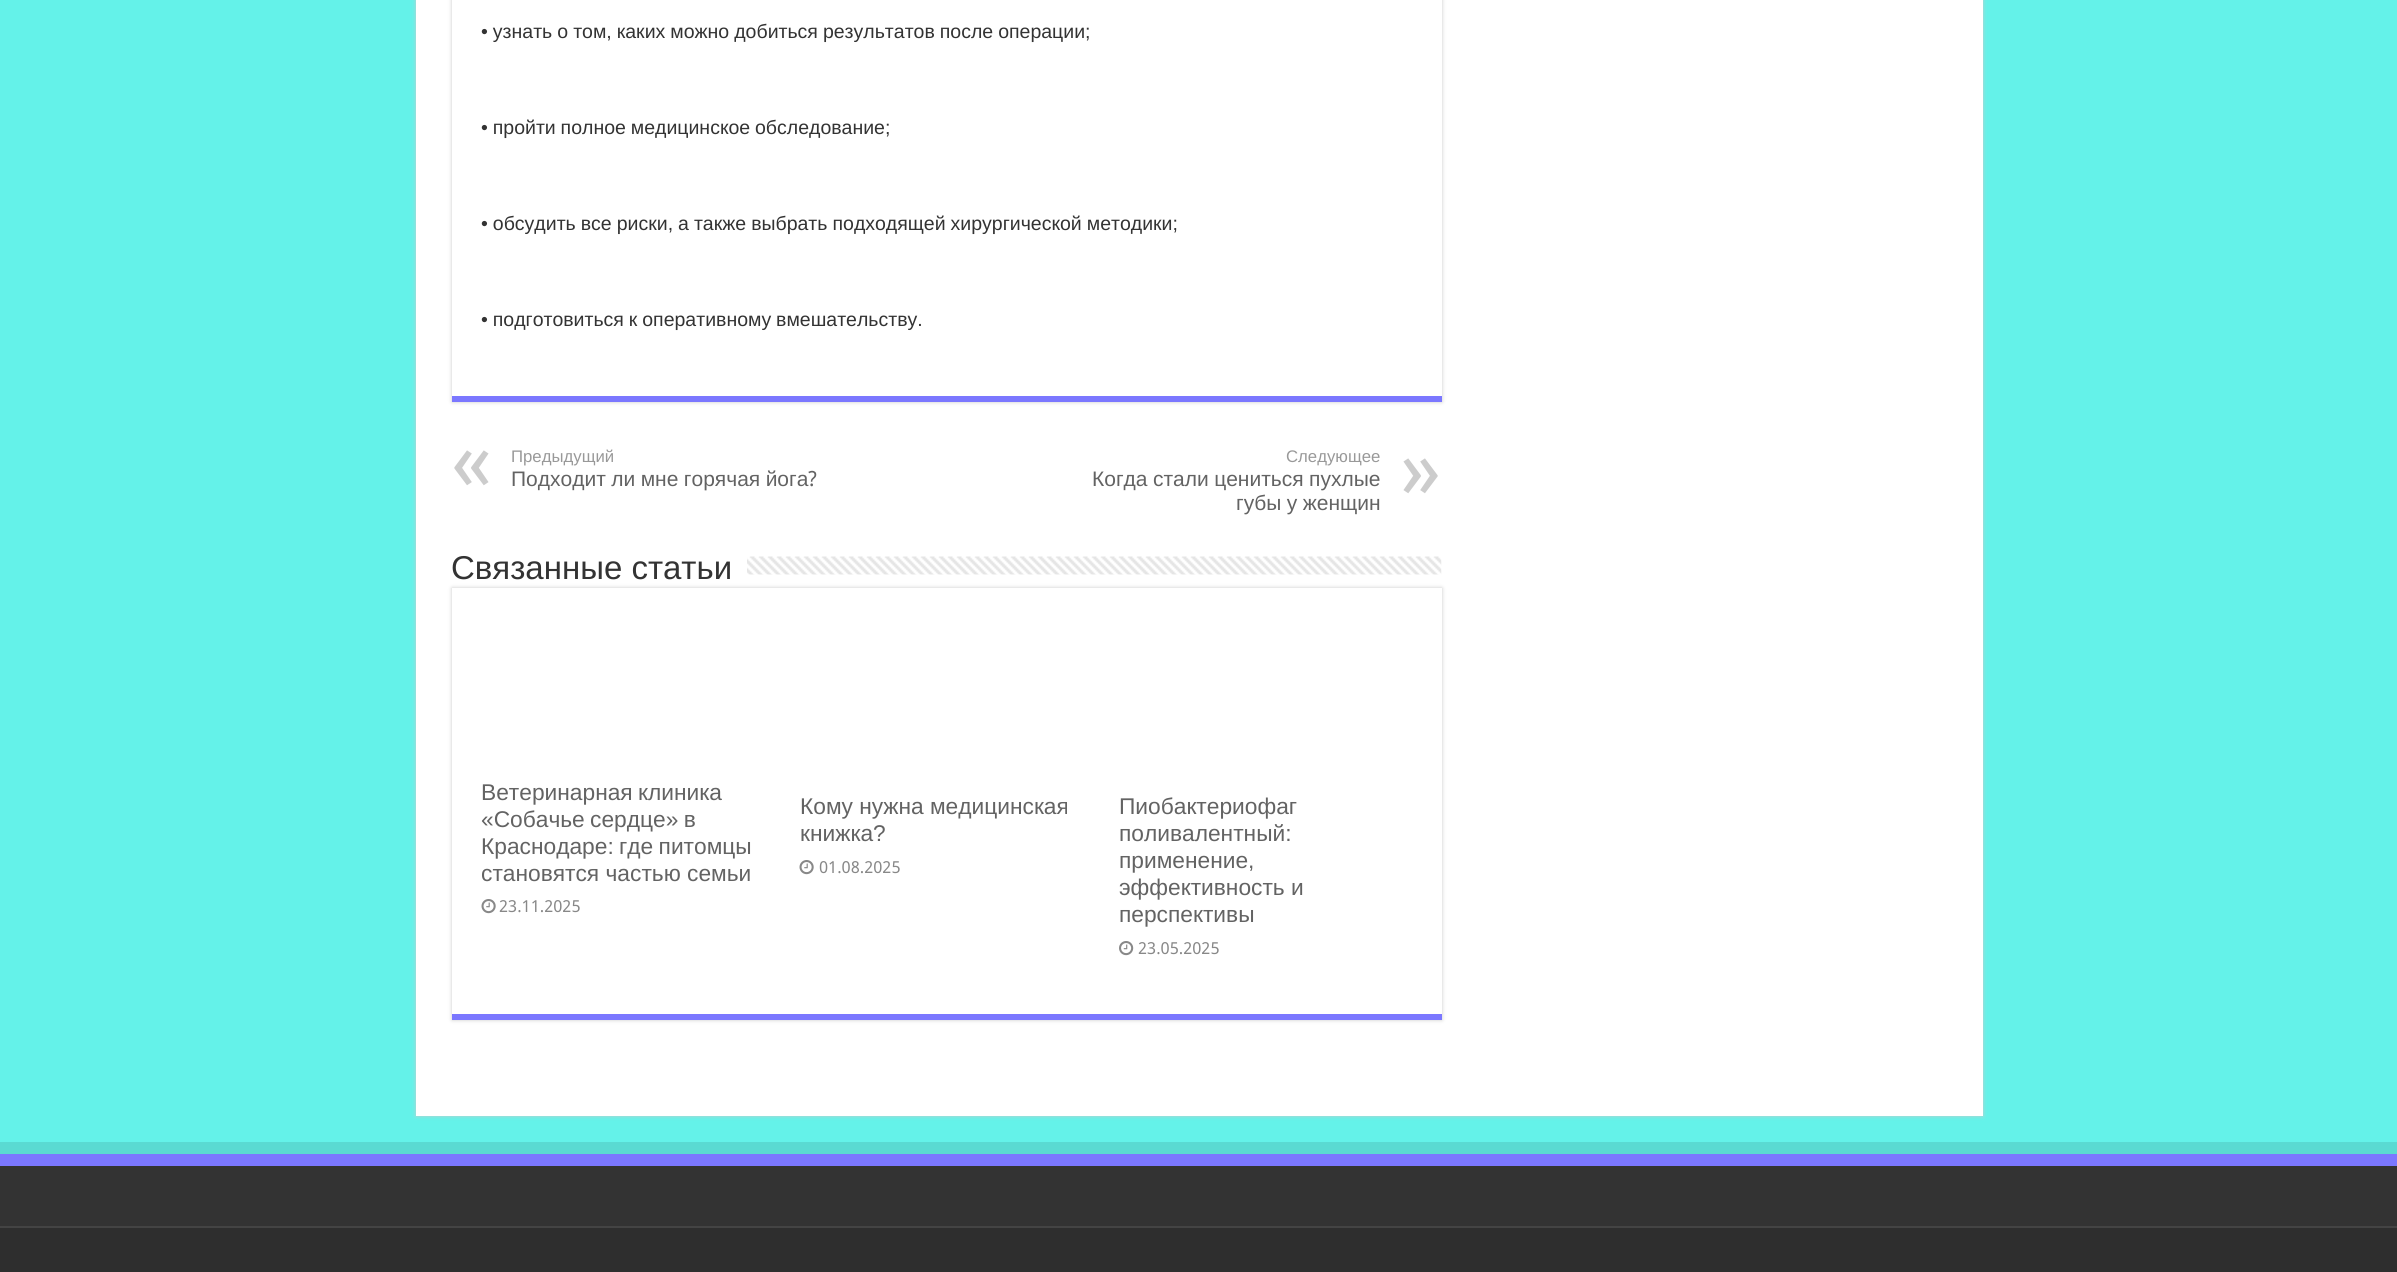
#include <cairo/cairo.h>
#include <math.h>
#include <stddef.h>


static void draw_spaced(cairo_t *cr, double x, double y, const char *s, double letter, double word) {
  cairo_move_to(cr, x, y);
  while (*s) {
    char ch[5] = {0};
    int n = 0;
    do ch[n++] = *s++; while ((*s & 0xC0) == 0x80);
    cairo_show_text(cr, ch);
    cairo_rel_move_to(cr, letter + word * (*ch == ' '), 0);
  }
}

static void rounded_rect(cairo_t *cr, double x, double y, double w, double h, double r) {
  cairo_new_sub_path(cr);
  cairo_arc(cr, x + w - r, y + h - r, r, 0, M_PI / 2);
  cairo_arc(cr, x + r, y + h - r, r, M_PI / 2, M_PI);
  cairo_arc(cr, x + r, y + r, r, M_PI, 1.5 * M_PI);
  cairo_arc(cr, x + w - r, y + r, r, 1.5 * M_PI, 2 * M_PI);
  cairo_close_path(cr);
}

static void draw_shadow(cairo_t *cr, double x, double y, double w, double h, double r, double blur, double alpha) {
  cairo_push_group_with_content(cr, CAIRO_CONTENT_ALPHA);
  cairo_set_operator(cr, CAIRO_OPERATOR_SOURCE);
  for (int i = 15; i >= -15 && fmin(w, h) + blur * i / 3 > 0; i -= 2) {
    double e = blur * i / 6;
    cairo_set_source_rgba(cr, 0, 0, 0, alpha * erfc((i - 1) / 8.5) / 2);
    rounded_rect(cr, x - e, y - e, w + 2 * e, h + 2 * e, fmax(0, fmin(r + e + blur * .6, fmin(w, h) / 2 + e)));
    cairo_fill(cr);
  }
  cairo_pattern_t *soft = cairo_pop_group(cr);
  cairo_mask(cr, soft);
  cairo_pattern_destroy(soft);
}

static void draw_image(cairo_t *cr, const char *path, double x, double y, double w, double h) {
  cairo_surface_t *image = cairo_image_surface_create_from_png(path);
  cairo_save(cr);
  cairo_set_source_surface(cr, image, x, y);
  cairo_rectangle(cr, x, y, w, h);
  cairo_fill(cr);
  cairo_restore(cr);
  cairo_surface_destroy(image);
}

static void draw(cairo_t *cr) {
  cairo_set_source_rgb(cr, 100 / 255.0, 242 / 255.0, 233 / 255.0);
  cairo_paint(cr);
  cairo_set_source_rgb(cr, 202 / 255.0, 202 / 255.0, 202 / 255.0);
  draw_shadow(cr, 416, -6, 1567, 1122, 0, 2, 1);
  cairo_set_source_rgb(cr, 1, 1, 1);
  cairo_rectangle(cr, 416, 0, 1567, 1116);
  cairo_fill(cr);
  cairo_set_source_rgb(cr, 202 / 255.0, 202 / 255.0, 202 / 255.0);
  draw_shadow(cr, 452, -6, 990, 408, 0, 2, 1);
  cairo_set_source_rgb(cr, 1, 1, 1);
  cairo_rectangle(cr, 452, 0, 990, 396);
  cairo_fill(cr);
  cairo_set_source_rgb(cr, 123 / 255.0, 119 / 255.0, 1);
  cairo_rectangle(cr, 452, 396, 990, 6);
  cairo_fill(cr);
  draw_image(cr, "images/1.png", 747, 556, 695, 19);
  cairo_set_source_rgb(cr, 202 / 255.0, 202 / 255.0, 202 / 255.0);
  draw_shadow(cr, 452, 588, 990, 432, 0, 2, 1);
  cairo_set_source_rgb(cr, 1, 1, 1);
  cairo_rectangle(cr, 452, 588, 990, 426);
  cairo_fill(cr);
  cairo_set_source_rgb(cr, 123 / 255.0, 119 / 255.0, 1);
  cairo_rectangle(cr, 452, 1014, 990, 6);
  cairo_fill(cr);
  draw_image(cr, "images/2.png", 481, 899, 15, 15);
  draw_image(cr, "images/2.png", 799, 860, 15, 15);
  draw_image(cr, "images/3.png", 1119, 941, 15, 15);
  cairo_set_source_rgb(cr, 90 / 255.0, 218 / 255.0, 210 / 255.0);
  cairo_rectangle(cr, 0, 1142, 2397, 12);
  cairo_fill(cr);
  cairo_set_source_rgb(cr, 51 / 255.0, 51 / 255.0, 51 / 255.0);
  cairo_rectangle(cr, 0, 1166, 2397, 60);
  cairo_fill(cr);
  cairo_set_source_rgb(cr, 123 / 255.0, 119 / 255.0, 1);
  cairo_rectangle(cr, 0, 1154, 2397, 12);
  cairo_fill(cr);
  cairo_set_source_rgb(cr, 46 / 255.0, 46 / 255.0, 46 / 255.0);
  cairo_rectangle(cr, 0, 1228, 2397, 44);
  cairo_fill(cr);
  cairo_set_source_rgb(cr, 68 / 255.0, 68 / 255.0, 68 / 255.0);
  cairo_rectangle(cr, 0, 1226, 2397, 2);
  cairo_fill(cr);
  cairo_select_font_face(cr, "Liberation Sans", CAIRO_FONT_SLANT_NORMAL, CAIRO_FONT_WEIGHT_NORMAL);
  cairo_set_font_size(cr, 19.5);
  cairo_set_source_rgb(cr, 51 / 255.0, 51 / 255.0, 51 / 255.0);
  draw_spaced(cr, 481, 38, "• узнать о том, каких можно добиться результатов после операции;", 0, -0.4);
  draw_spaced(cr, 481, 134, "• пройти полное медицинское обследование;", 0, -0.5);
  draw_spaced(cr, 481, 230, "• обсудить все риски, а также выбрать подходящей хирургической методики;", 0, -0.4);
  draw_spaced(cr, 481, 326, "• подготовиться к оперативному вмешательству.", 0, -0.5);
  cairo_select_font_face(cr, "Droid Sans", CAIRO_FONT_SLANT_NORMAL, CAIRO_FONT_WEIGHT_NORMAL);
  cairo_set_font_size(cr, 84);
  cairo_set_source_rgb(cr, 204 / 255.0, 204 / 255.0, 204 / 255.0);
  cairo_move_to(cr, 451, 490);
  cairo_show_text(cr, "«");
  cairo_select_font_face(cr, "Liberation Sans", CAIRO_FONT_SLANT_NORMAL, CAIRO_FONT_WEIGHT_NORMAL);
  cairo_set_font_size(cr, 16.75);
  cairo_set_source_rgb(cr, 153 / 255.0, 153 / 255.0, 153 / 255.0);
  cairo_move_to(cr, 511, 462);
  cairo_show_text(cr, "Предыдущий");
  cairo_set_font_size(cr, 21);
  cairo_set_source_rgb(cr, 99 / 255.0, 99 / 255.0, 99 / 255.0);
  draw_spaced(cr, 511, 486, "Подходит ли мне горячая йога", 0, -0.4);
  cairo_select_font_face(cr, "Droid Sans", CAIRO_FONT_SLANT_NORMAL, CAIRO_FONT_WEIGHT_NORMAL);
  cairo_move_to(cr, 808, 486);
  cairo_show_text(cr, "?");
  cairo_select_font_face(cr, "Liberation Sans", CAIRO_FONT_SLANT_NORMAL, CAIRO_FONT_WEIGHT_NORMAL);
  cairo_set_font_size(cr, 16.75);
  cairo_set_source_rgb(cr, 153 / 255.0, 153 / 255.0, 153 / 255.0);
  cairo_move_to(cr, 1286, 462);
  cairo_show_text(cr, "Следующее");
  cairo_select_font_face(cr, "Droid Sans", CAIRO_FONT_SLANT_NORMAL, CAIRO_FONT_WEIGHT_NORMAL);
  cairo_set_font_size(cr, 84);
  cairo_set_source_rgb(cr, 204 / 255.0, 204 / 255.0, 204 / 255.0);
  cairo_move_to(cr, 1400, 498);
  cairo_show_text(cr, "»");
  cairo_select_font_face(cr, "Liberation Sans", CAIRO_FONT_SLANT_NORMAL, CAIRO_FONT_WEIGHT_NORMAL);
  cairo_set_font_size(cr, 21);
  cairo_set_source_rgb(cr, 99 / 255.0, 99 / 255.0, 99 / 255.0);
  draw_spaced(cr, 1092, 486, "Когда стали цениться пухлые", 0, -0.4);
  draw_spaced(cr, 1236, 510, "губы у женщин", 0, -0.4);
  cairo_set_font_size(cr, 33);
  cairo_set_source_rgb(cr, 51 / 255.0, 51 / 255.0, 51 / 255.0);
  cairo_move_to(cr, 451, 579);
  cairo_show_text(cr, "Связанные статьи");
  cairo_set_font_size(cr, 22.75);
  cairo_set_source_rgb(cr, 99 / 255.0, 99 / 255.0, 99 / 255.0);
  draw_spaced(cr, 481, 800, "Ветеринарная клиника", 0, -1);
  draw_spaced(cr, 481, 827, "«Собачье сердце» в", 0, -1);
  draw_spaced(cr, 481, 854, "Краснодаре: где питомцы", 0, -1);
  cairo_move_to(cr, 481, 881);
  cairo_show_text(cr, "становятся частью семьи");
  cairo_select_font_face(cr, "Droid Sans", CAIRO_FONT_SLANT_NORMAL, CAIRO_FONT_WEIGHT_NORMAL);
  cairo_set_font_size(cr, 16.5);
  cairo_set_source_rgb(cr, 136 / 255.0, 136 / 255.0, 136 / 255.0);
  cairo_move_to(cr, 499, 912);
  cairo_show_text(cr, "23.11.2025");
  cairo_select_font_face(cr, "Liberation Sans", CAIRO_FONT_SLANT_NORMAL, CAIRO_FONT_WEIGHT_NORMAL);
  cairo_set_font_size(cr, 22.75);
  cairo_set_source_rgb(cr, 99 / 255.0, 99 / 255.0, 99 / 255.0);
  cairo_move_to(cr, 800, 814);
  cairo_show_text(cr, "Кому нужна медицинская");
  cairo_move_to(cr, 800, 841);
  cairo_show_text(cr, "книжка?");
  cairo_select_font_face(cr, "Droid Sans", CAIRO_FONT_SLANT_NORMAL, CAIRO_FONT_WEIGHT_NORMAL);
  cairo_set_font_size(cr, 16.5);
  cairo_set_source_rgb(cr, 136 / 255.0, 136 / 255.0, 136 / 255.0);
  cairo_move_to(cr, 819, 873);
  cairo_show_text(cr, "01.08.2025");
  cairo_select_font_face(cr, "Liberation Sans", CAIRO_FONT_SLANT_NORMAL, CAIRO_FONT_WEIGHT_NORMAL);
  cairo_set_font_size(cr, 22.75);
  cairo_set_source_rgb(cr, 99 / 255.0, 99 / 255.0, 99 / 255.0);
  cairo_move_to(cr, 1119, 814);
  cairo_show_text(cr, "Пиобактериофаг");
  cairo_move_to(cr, 1119, 841);
  cairo_show_text(cr, "поливалентный:");
  cairo_move_to(cr, 1119, 868);
  cairo_show_text(cr, "применение,");
  cairo_move_to(cr, 1119, 895);
  cairo_show_text(cr, "эффективность и");
  cairo_move_to(cr, 1119, 922);
  cairo_show_text(cr, "перспективы");
  cairo_select_font_face(cr, "Droid Sans", CAIRO_FONT_SLANT_NORMAL, CAIRO_FONT_WEIGHT_NORMAL);
  cairo_set_font_size(cr, 16.5);
  cairo_set_source_rgb(cr, 136 / 255.0, 136 / 255.0, 136 / 255.0);
  cairo_move_to(cr, 1138, 954);
  cairo_show_text(cr, "23.05.2025");
}

int main(void) {
  cairo_surface_t *surface = cairo_image_surface_create(CAIRO_FORMAT_RGB24, 2397, 1272);
  cairo_t *cr = cairo_create(surface);
  cairo_font_options_t *options = cairo_font_options_create();
  cairo_font_options_set_hint_metrics(options, CAIRO_HINT_METRICS_OFF);
  cairo_font_options_set_hint_style(options, CAIRO_HINT_STYLE_NONE);
  cairo_set_font_options(cr, options);
  cairo_set_miter_limit(cr, 4);
  draw(cr);
  cairo_surface_write_to_png(surface, "out.png");
  cairo_font_options_destroy(options);
  cairo_destroy(cr);
  cairo_surface_destroy(surface);
  return 0;
}
